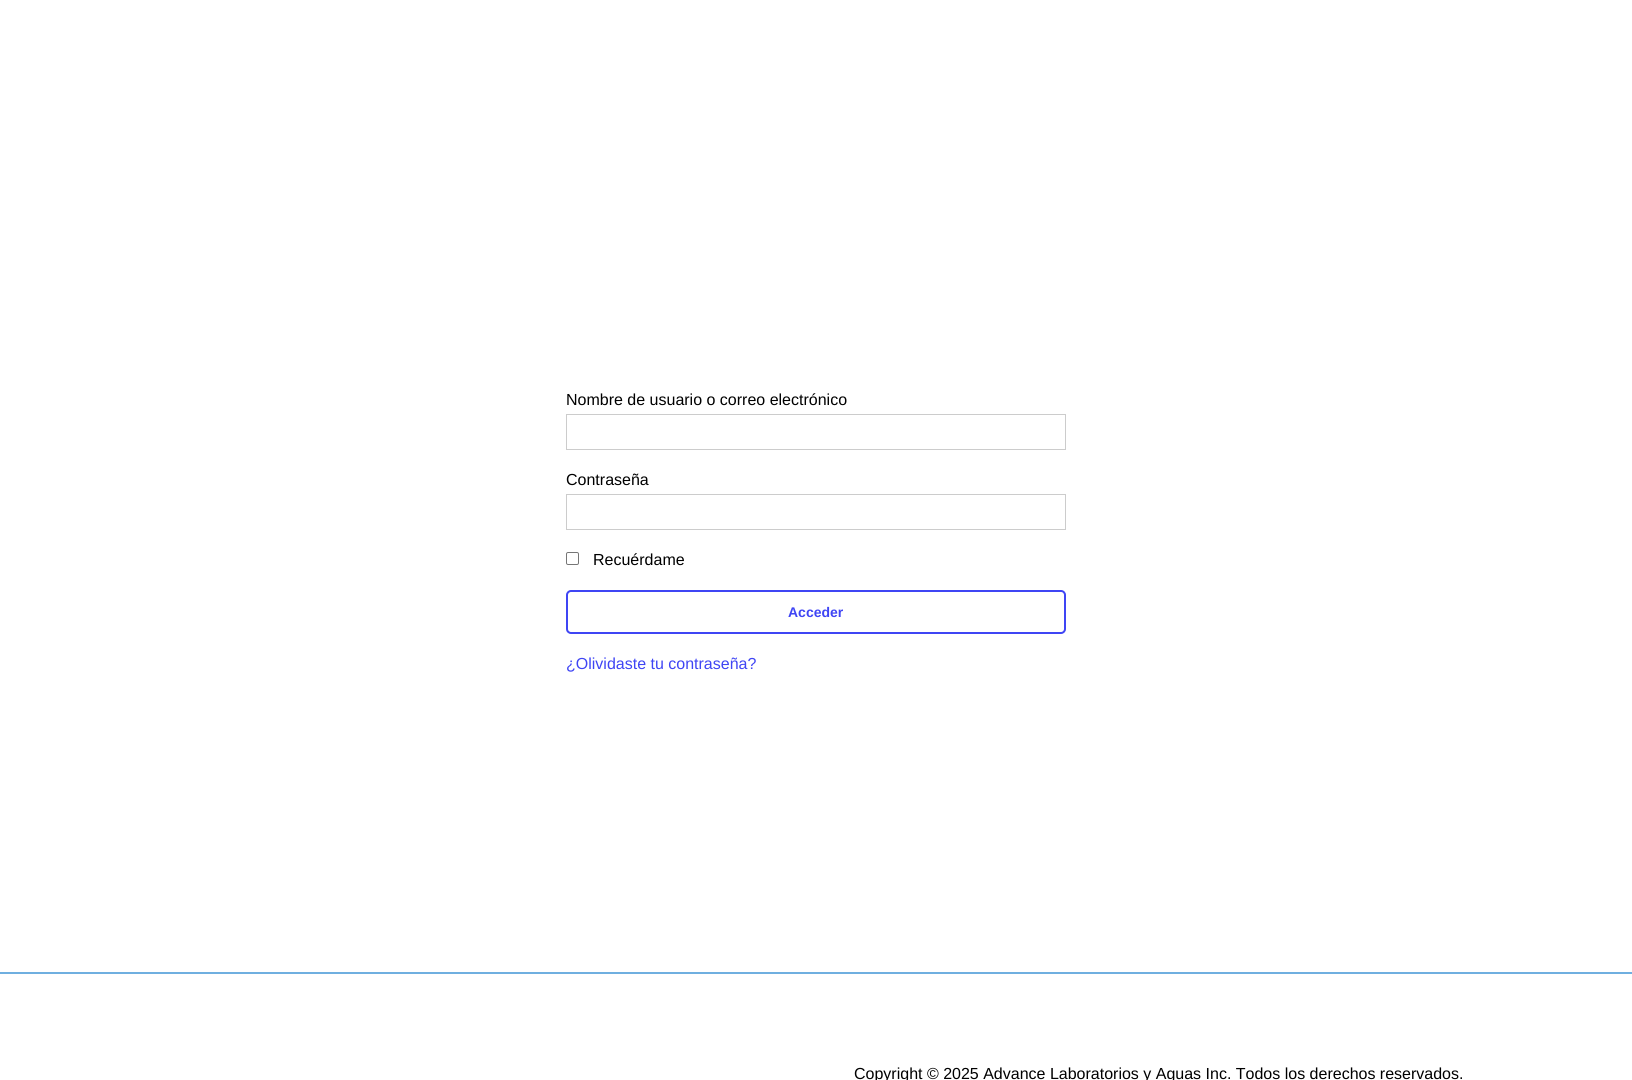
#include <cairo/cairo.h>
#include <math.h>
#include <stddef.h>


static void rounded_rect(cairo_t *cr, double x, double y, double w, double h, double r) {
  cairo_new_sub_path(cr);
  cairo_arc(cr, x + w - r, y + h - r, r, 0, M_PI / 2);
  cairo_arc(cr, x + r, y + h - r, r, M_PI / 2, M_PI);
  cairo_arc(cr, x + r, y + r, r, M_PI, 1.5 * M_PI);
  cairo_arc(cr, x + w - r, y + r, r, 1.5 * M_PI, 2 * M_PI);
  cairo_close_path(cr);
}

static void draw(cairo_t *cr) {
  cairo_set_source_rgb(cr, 1, 1, 1);
  cairo_paint(cr);
  cairo_rectangle(cr, 566.5, 414.5, 499, 35);
  cairo_set_source_rgb(cr, 204 / 255.0, 204 / 255.0, 204 / 255.0);
  cairo_set_line_width(cr, 1);
  cairo_stroke(cr);
  cairo_rectangle(cr, 566.5, 494.5, 499, 35);
  cairo_stroke(cr);
  rounded_rect(cr, 566.5, 552.5, 12, 12, 1.5);
  cairo_set_source_rgb(cr, 118 / 255.0, 118 / 255.0, 118 / 255.0);
  cairo_stroke(cr);
  rounded_rect(cr, 567, 591, 498, 42, 4);
  cairo_set_source_rgb(cr, 63 / 255.0, 69 / 255.0, 244 / 255.0);
  cairo_set_line_width(cr, 2);
  cairo_stroke(cr);
  cairo_set_source_rgb(cr, 111 / 255.0, 175 / 255.0, 224 / 255.0);
  cairo_rectangle(cr, 0, 972, 1632, 2);
  cairo_fill(cr);
  cairo_select_font_face(cr, "Liberation Sans", CAIRO_FONT_SLANT_NORMAL, CAIRO_FONT_WEIGHT_NORMAL);
  cairo_set_font_size(cr, 16);
  cairo_set_source_rgb(cr, 0, 0, 0);
  cairo_move_to(cr, 566, 405);
  cairo_show_text(cr, "Nombre de usuario o correo electrónico");
  cairo_move_to(cr, 566, 485);
  cairo_show_text(cr, "Contraseña");
  cairo_move_to(cr, 593, 565);
  cairo_show_text(cr, "Recuérdame");
  cairo_select_font_face(cr, "Liberation Sans", CAIRO_FONT_SLANT_NORMAL, CAIRO_FONT_WEIGHT_BOLD);
  cairo_set_font_size(cr, 14);
  cairo_set_source_rgb(cr, 63 / 255.0, 69 / 255.0, 244 / 255.0);
  cairo_move_to(cr, 788, 617);
  cairo_show_text(cr, "Acceder");
  cairo_select_font_face(cr, "Liberation Sans", CAIRO_FONT_SLANT_NORMAL, CAIRO_FONT_WEIGHT_NORMAL);
  cairo_set_font_size(cr, 16);
  cairo_move_to(cr, 566, 669);
  cairo_show_text(cr, "¿Olividaste tu contraseña?");
  cairo_set_source_rgb(cr, 0, 0, 0);
  cairo_move_to(cr, 854, 1079);
  cairo_show_text(cr, "Copyright © 2025 Advance Laboratorios y Aguas Inc. Todos los derechos reservados.");
}

int main(void) {
  cairo_surface_t *surface = cairo_image_surface_create(CAIRO_FORMAT_RGB24, 1632, 1080);
  cairo_t *cr = cairo_create(surface);
  cairo_font_options_t *options = cairo_font_options_create();
  cairo_font_options_set_hint_metrics(options, CAIRO_HINT_METRICS_OFF);
  cairo_font_options_set_hint_style(options, CAIRO_HINT_STYLE_NONE);
  cairo_set_font_options(cr, options);
  cairo_set_miter_limit(cr, 4);
  draw(cr);
  cairo_surface_write_to_png(surface, "out.png");
  cairo_font_options_destroy(options);
  cairo_destroy(cr);
  cairo_surface_destroy(surface);
  return 0;
}
